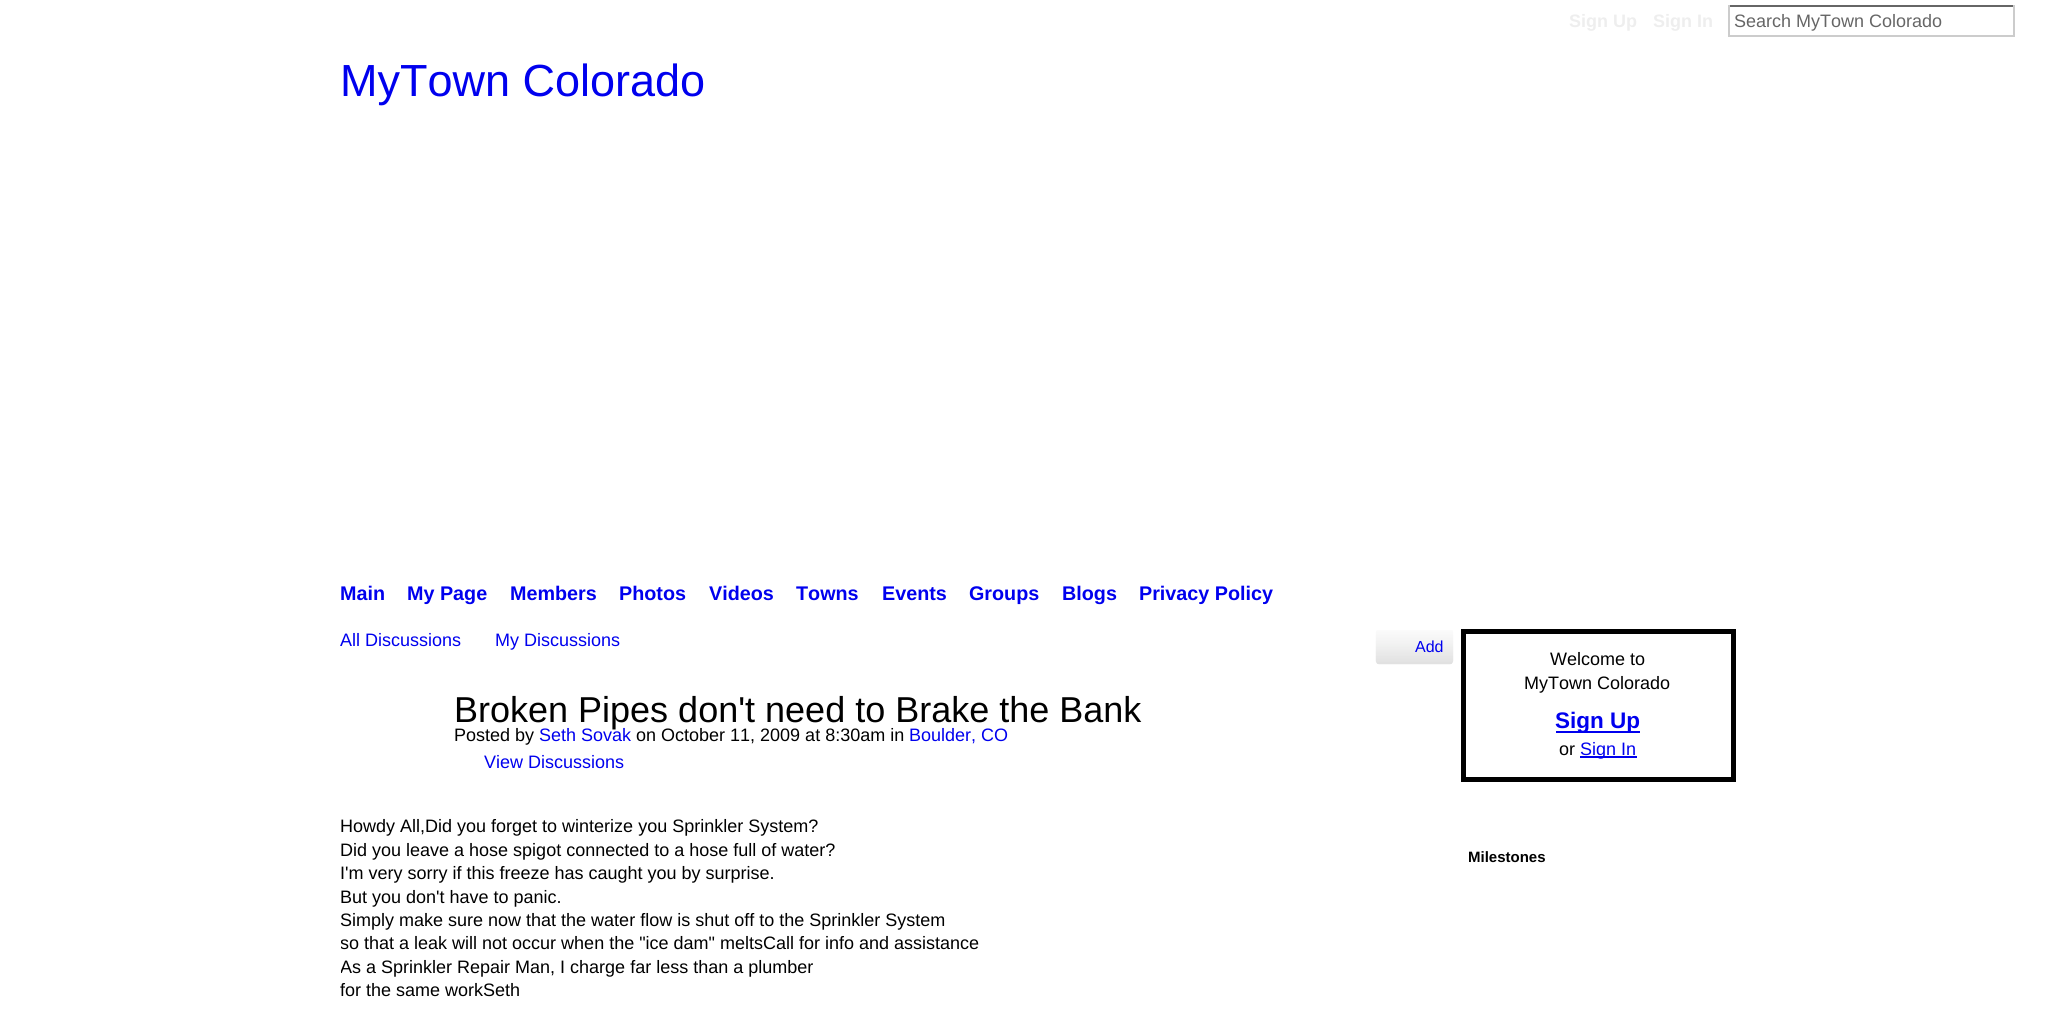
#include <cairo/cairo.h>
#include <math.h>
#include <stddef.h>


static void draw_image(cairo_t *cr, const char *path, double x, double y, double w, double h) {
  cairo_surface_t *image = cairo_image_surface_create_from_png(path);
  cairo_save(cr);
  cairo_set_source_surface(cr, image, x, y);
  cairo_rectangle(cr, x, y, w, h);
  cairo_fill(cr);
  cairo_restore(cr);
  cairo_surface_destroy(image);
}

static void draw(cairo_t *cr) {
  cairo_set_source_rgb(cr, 1, 1, 1);
  cairo_paint(cr);
  cairo_set_source_rgb(cr, 102 / 255.0, 102 / 255.0, 102 / 255.0);
  cairo_rectangle(cr, 1728, 5, 287, 2);
  cairo_fill(cr);
  cairo_set_source_rgb(cr, 204 / 255.0, 204 / 255.0, 204 / 255.0);
  cairo_rectangle(cr, 2013, 5, 2, 31);
  cairo_fill(cr);
  cairo_rectangle(cr, 1728, 35, 287, 2);
  cairo_fill(cr);
  cairo_rectangle(cr, 1728, 5, 2, 31);
  cairo_fill(cr);
  draw_image(cr, "images/1.png", 1375, 630, 79, 35);
  cairo_rectangle(cr, 1463.5, 631.5, 270, 148);
  cairo_set_source_rgb(cr, 0, 0, 0);
  cairo_set_line_width(cr, 5);
  cairo_stroke(cr);
  cairo_set_source_rgb(cr, 0, 0, 238 / 255.0);
  cairo_rectangle(cr, 1556, 731, 84, 2);
  cairo_fill(cr);
  cairo_rectangle(cr, 1580, 756, 57, 2);
  cairo_fill(cr);
  cairo_select_font_face(cr, "Liberation Sans", CAIRO_FONT_SLANT_NORMAL, CAIRO_FONT_WEIGHT_BOLD);
  cairo_set_font_size(cr, 18);
  cairo_set_source_rgb(cr, 238 / 255.0, 238 / 255.0, 238 / 255.0);
  cairo_move_to(cr, 1569, 27);
  cairo_show_text(cr, "Sign Up");
  cairo_move_to(cr, 1653, 27);
  cairo_show_text(cr, "Sign In");
  cairo_select_font_face(cr, "Liberation Sans", CAIRO_FONT_SLANT_NORMAL, CAIRO_FONT_WEIGHT_NORMAL);
  cairo_set_source_rgb(cr, 102 / 255.0, 102 / 255.0, 102 / 255.0);
  cairo_move_to(cr, 1734, 27);
  cairo_show_text(cr, "Search MyTown Colorado");
  cairo_set_font_size(cr, 45);
  cairo_set_source_rgb(cr, 0, 0, 238 / 255.0);
  cairo_move_to(cr, 340, 96);
  cairo_show_text(cr, "MyTown Colorado");
  cairo_select_font_face(cr, "Liberation Sans", CAIRO_FONT_SLANT_NORMAL, CAIRO_FONT_WEIGHT_BOLD);
  cairo_set_font_size(cr, 19.75);
  cairo_move_to(cr, 340, 600);
  cairo_show_text(cr, "Main");
  cairo_move_to(cr, 407, 600);
  cairo_show_text(cr, "My Page");
  cairo_move_to(cr, 510, 600);
  cairo_show_text(cr, "Members");
  cairo_move_to(cr, 619, 600);
  cairo_show_text(cr, "Photos");
  cairo_move_to(cr, 709, 600);
  cairo_show_text(cr, "Videos");
  cairo_move_to(cr, 796, 600);
  cairo_show_text(cr, "Towns");
  cairo_move_to(cr, 882, 600);
  cairo_show_text(cr, "Events");
  cairo_move_to(cr, 969, 600);
  cairo_show_text(cr, "Groups");
  cairo_move_to(cr, 1062, 600);
  cairo_show_text(cr, "Blogs");
  cairo_move_to(cr, 1139, 600);
  cairo_show_text(cr, "Privacy Policy");
  cairo_select_font_face(cr, "Liberation Sans", CAIRO_FONT_SLANT_NORMAL, CAIRO_FONT_WEIGHT_NORMAL);
  cairo_set_font_size(cr, 18);
  cairo_move_to(cr, 340, 646);
  cairo_show_text(cr, "All Discussions");
  cairo_move_to(cr, 495, 646);
  cairo_show_text(cr, "My Discussions");
  cairo_set_font_size(cr, 16);
  cairo_move_to(cr, 1415, 652);
  cairo_show_text(cr, "Add");
  cairo_set_font_size(cr, 36);
  cairo_set_source_rgb(cr, 0, 0, 0);
  cairo_move_to(cr, 454, 722);
  cairo_show_text(cr, "Broken Pipes don't need to Brake the Bank");
  cairo_set_font_size(cr, 18);
  cairo_move_to(cr, 454, 741);
  cairo_show_text(cr, "Posted by");
  cairo_set_source_rgb(cr, 0, 0, 238 / 255.0);
  cairo_move_to(cr, 539, 741);
  cairo_show_text(cr, "Seth Sovak");
  cairo_set_source_rgb(cr, 0, 0, 0);
  cairo_move_to(cr, 636, 741);
  cairo_show_text(cr, "on October 11, 2009 at 8:30am in");
  cairo_set_source_rgb(cr, 0, 0, 238 / 255.0);
  cairo_move_to(cr, 909, 741);
  cairo_show_text(cr, "Boulder, CO");
  cairo_move_to(cr, 484, 768);
  cairo_show_text(cr, "View Discussions");
  cairo_set_source_rgb(cr, 0, 0, 0);
  cairo_move_to(cr, 340, 832);
  cairo_show_text(cr, "Howdy All,Did you forget to winterize you Sprinkler System?");
  cairo_move_to(cr, 340, 856);
  cairo_show_text(cr, "Did you leave a hose spigot connected to a hose full of water?");
  cairo_move_to(cr, 340, 879);
  cairo_show_text(cr, "I'm very sorry if this freeze has caught you by surprise.");
  cairo_move_to(cr, 340, 903);
  cairo_show_text(cr, "But you don't have to panic.");
  cairo_move_to(cr, 340, 926);
  cairo_show_text(cr, "Simply make sure now that the water flow is shut off to the Sprinkler System");
  cairo_save(cr);
  cairo_rectangle(cr, 341, 816, 1105, 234);
  cairo_clip(cr);
  cairo_move_to(cr, 340, 949);
  cairo_show_text(cr, "so that a leak will not occur when the \"ice dam\" meltsCall for info and assistance");
  cairo_move_to(cr, 340, 973);
  cairo_show_text(cr, "As a Sprinkler Repair Man, I charge far less than a plumber");
  cairo_restore(cr);
  cairo_move_to(cr, 340, 996);
  cairo_show_text(cr, "for the same workSeth");
  cairo_move_to(cr, 1550, 665);
  cairo_show_text(cr, "Welcome to");
  cairo_move_to(cr, 1524, 689);
  cairo_show_text(cr, "MyTown Colorado");
  cairo_select_font_face(cr, "Liberation Sans", CAIRO_FONT_SLANT_NORMAL, CAIRO_FONT_WEIGHT_BOLD);
  cairo_set_font_size(cr, 22.5);
  cairo_set_source_rgb(cr, 0, 0, 238 / 255.0);
  cairo_move_to(cr, 1555, 728);
  cairo_show_text(cr, "Sign Up");
  cairo_select_font_face(cr, "Liberation Sans", CAIRO_FONT_SLANT_NORMAL, CAIRO_FONT_WEIGHT_NORMAL);
  cairo_set_font_size(cr, 18);
  cairo_set_source_rgb(cr, 0, 0, 0);
  cairo_move_to(cr, 1559, 755);
  cairo_show_text(cr, "or");
  cairo_set_source_rgb(cr, 0, 0, 238 / 255.0);
  cairo_move_to(cr, 1580, 755);
  cairo_show_text(cr, "Sign In");
  cairo_save(cr);
  cairo_rectangle(cr, 1469, 848, 76, 19);
  cairo_clip(cr);
  cairo_select_font_face(cr, "Liberation Sans", CAIRO_FONT_SLANT_NORMAL, CAIRO_FONT_WEIGHT_BOLD);
  cairo_set_font_size(cr, 15);
  cairo_set_source_rgb(cr, 0, 0, 0);
  cairo_move_to(cr, 1468, 862);
  cairo_show_text(cr, "Milestones");
  cairo_restore(cr);
}

int main(void) {
  cairo_surface_t *surface = cairo_image_surface_create(CAIRO_FORMAT_RGB24, 2066, 1010);
  cairo_t *cr = cairo_create(surface);
  cairo_font_options_t *options = cairo_font_options_create();
  cairo_font_options_set_hint_metrics(options, CAIRO_HINT_METRICS_OFF);
  cairo_font_options_set_hint_style(options, CAIRO_HINT_STYLE_NONE);
  cairo_set_font_options(cr, options);
  cairo_set_miter_limit(cr, 4);
  draw(cr);
  cairo_surface_write_to_png(surface, "out.png");
  cairo_font_options_destroy(options);
  cairo_destroy(cr);
  cairo_surface_destroy(surface);
  return 0;
}
